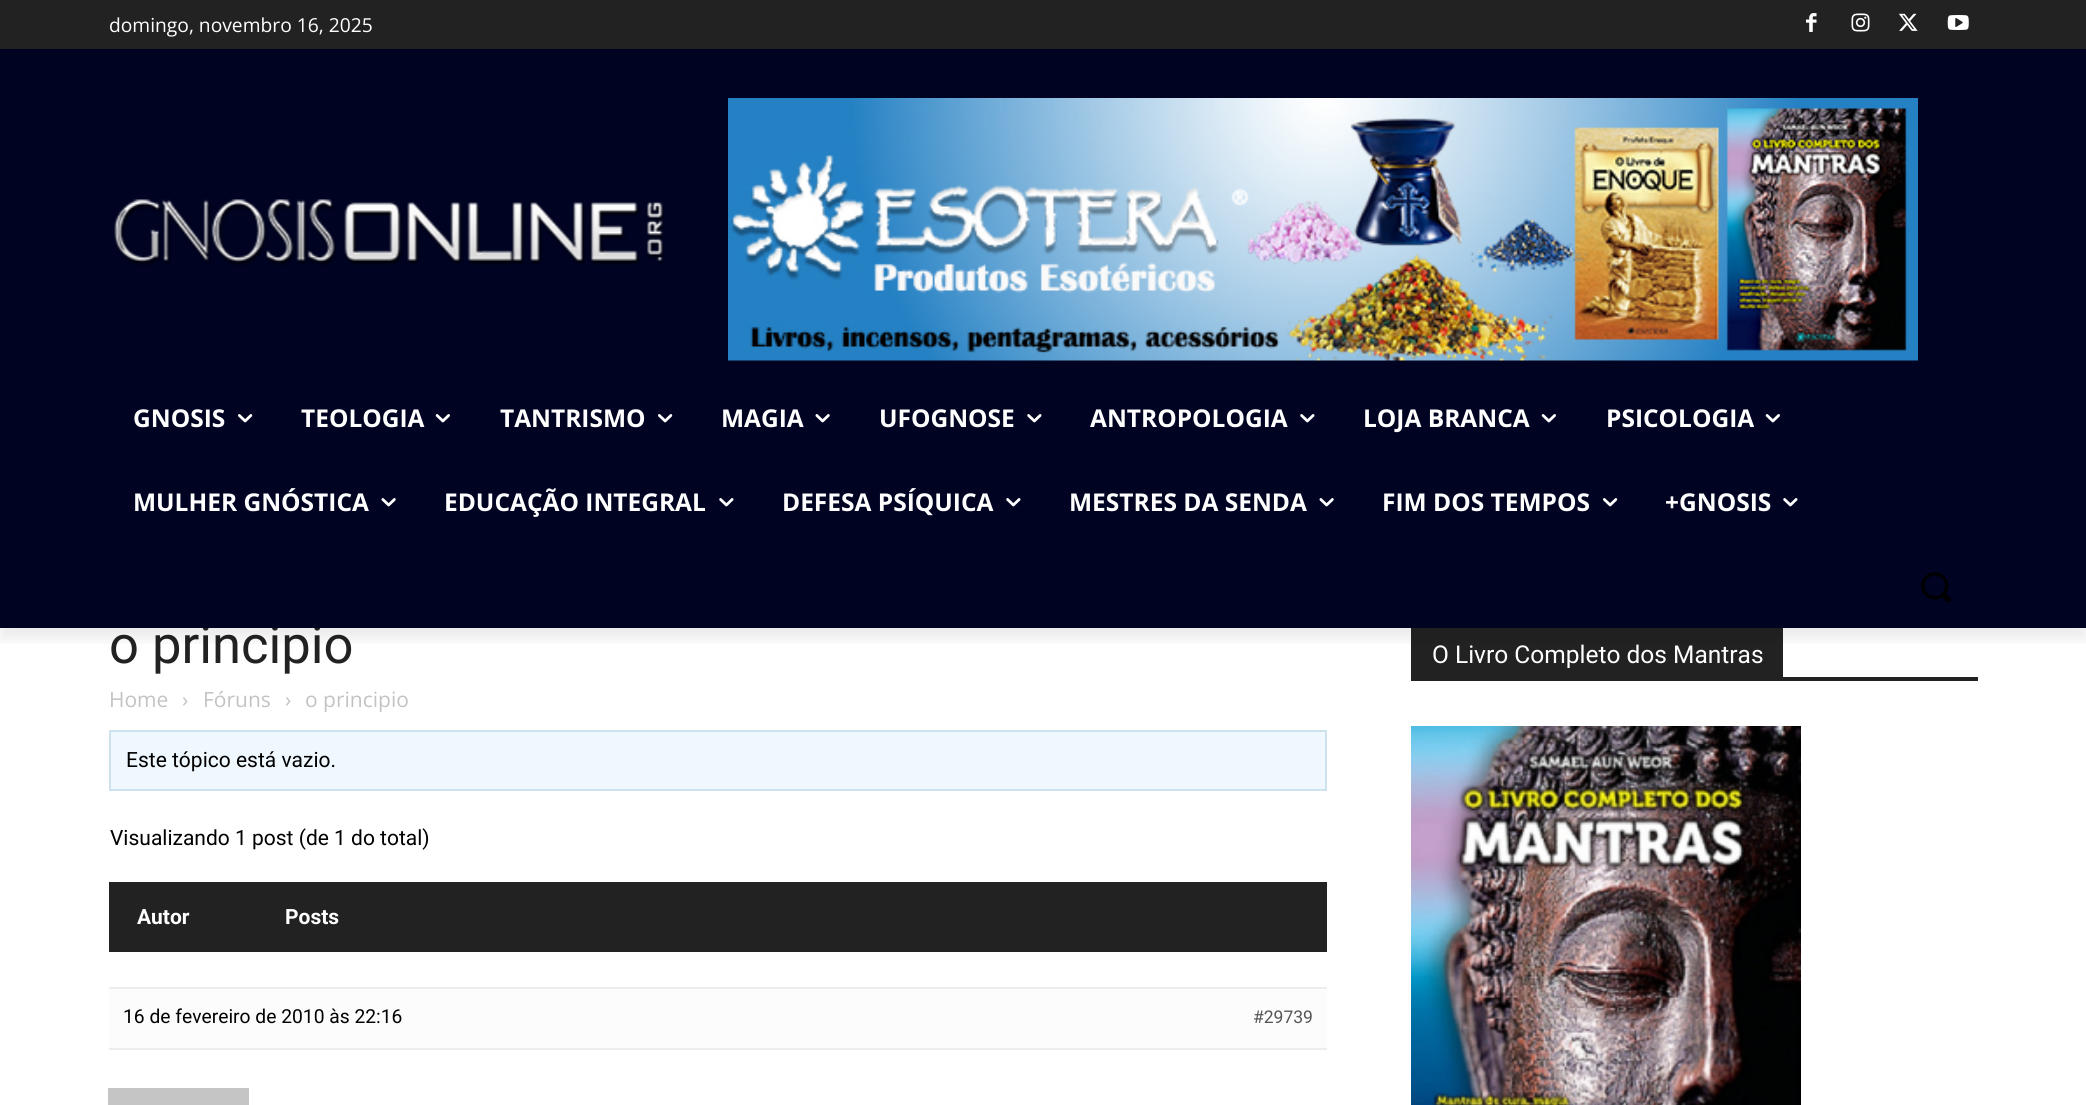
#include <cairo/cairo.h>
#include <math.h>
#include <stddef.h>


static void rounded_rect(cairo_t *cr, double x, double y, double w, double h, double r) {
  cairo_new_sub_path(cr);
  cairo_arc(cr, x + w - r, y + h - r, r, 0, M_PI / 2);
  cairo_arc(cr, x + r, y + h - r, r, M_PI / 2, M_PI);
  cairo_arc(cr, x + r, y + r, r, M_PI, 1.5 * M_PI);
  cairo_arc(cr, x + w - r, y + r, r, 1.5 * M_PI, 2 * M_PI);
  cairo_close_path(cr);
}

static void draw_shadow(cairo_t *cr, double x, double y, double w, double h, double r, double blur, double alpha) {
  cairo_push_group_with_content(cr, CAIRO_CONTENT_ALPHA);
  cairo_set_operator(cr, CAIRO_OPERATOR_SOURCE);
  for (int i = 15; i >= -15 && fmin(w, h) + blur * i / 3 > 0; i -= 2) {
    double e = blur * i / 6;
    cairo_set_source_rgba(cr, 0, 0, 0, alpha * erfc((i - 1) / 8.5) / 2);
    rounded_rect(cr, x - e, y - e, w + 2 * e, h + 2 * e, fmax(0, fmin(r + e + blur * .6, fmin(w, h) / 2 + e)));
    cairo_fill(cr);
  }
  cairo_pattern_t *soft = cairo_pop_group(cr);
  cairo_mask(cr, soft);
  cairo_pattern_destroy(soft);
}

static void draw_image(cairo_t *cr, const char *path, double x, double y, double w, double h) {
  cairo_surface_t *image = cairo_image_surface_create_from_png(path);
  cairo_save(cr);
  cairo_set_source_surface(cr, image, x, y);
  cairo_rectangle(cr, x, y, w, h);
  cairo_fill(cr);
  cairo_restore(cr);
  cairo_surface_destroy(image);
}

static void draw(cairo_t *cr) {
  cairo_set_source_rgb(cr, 1, 1, 1);
  cairo_paint(cr);
  cairo_set_source_rgb(cr, 34 / 255.0, 34 / 255.0, 34 / 255.0);
  cairo_rectangle(cr, 0, 0, 2086, 49);
  cairo_fill(cr);
  draw_image(cr, "images/1.png", 1806, 13, 11, 19);
  draw_image(cr, "images/2.png", 1851, 13, 19, 19);
  draw_image(cr, "images/3.png", 1898, 13, 20, 18);
  draw_image(cr, "images/4.png", 1947, 15, 22, 15);
  cairo_set_source_rgb(cr, 240 / 255.0, 248 / 255.0, 1);
  cairo_rectangle(cr, 110, 731, 1216, 59);
  cairo_fill_preserve(cr);
  cairo_set_source_rgb(cr, 206 / 255.0, 225 / 255.0, 239 / 255.0);
  cairo_stroke(cr);
  cairo_set_source_rgb(cr, 34 / 255.0, 34 / 255.0, 34 / 255.0);
  cairo_rectangle(cr, 109, 882, 1218, 70);
  cairo_fill(cr);
  cairo_set_source_rgb(cr, 252 / 255.0, 252 / 255.0, 252 / 255.0);
  cairo_rectangle(cr, 109, 989, 1218, 59);
  cairo_fill(cr);
  cairo_set_source_rgb(cr, 237 / 255.0, 237 / 255.0, 237 / 255.0);
  cairo_rectangle(cr, 109, 987, 1218, 2);
  cairo_fill(cr);
  cairo_rectangle(cr, 109, 1048, 1218, 2);
  cairo_fill(cr);
  cairo_set_source_rgb(cr, 197 / 255.0, 197 / 255.0, 197 / 255.0);
  cairo_rectangle(cr, 108, 1088, 141, 17);
  cairo_fill(cr);
  cairo_set_source_rgb(cr, 34 / 255.0, 34 / 255.0, 34 / 255.0);
  cairo_rectangle(cr, 1411, 677, 567, 4);
  cairo_fill(cr);
  cairo_rectangle(cr, 1411, 628, 372, 49);
  cairo_fill(cr);
  draw_image(cr, "images/12.png", 1411, 726, 390, 379);
  cairo_select_font_face(cr, "Open Sans", CAIRO_FONT_SLANT_NORMAL, CAIRO_FONT_WEIGHT_NORMAL);
  cairo_set_font_size(cr, 19.25);
  cairo_set_source_rgb(cr, 1, 1, 1);
  cairo_move_to(cr, 109, 32);
  cairo_show_text(cr, "domingo, novembro 16, 2025");
  cairo_select_font_face(cr, "Roboto", CAIRO_FONT_SLANT_NORMAL, CAIRO_FONT_WEIGHT_NORMAL);
  cairo_set_font_size(cr, 52.5);
  cairo_set_source_rgb(cr, 34 / 255.0, 34 / 255.0, 34 / 255.0);
  cairo_move_to(cr, 109, 663);
  cairo_show_text(cr, "o principio");
  cairo_set_source_rgb(cr, 0, 3 / 255.0, 33 / 255.0);
  cairo_rectangle(cr, 0, 49, 2086, 579);
  cairo_fill(cr);
  draw_image(cr, "images/6.png", 728, 98, 1190, 263);
  draw_image(cr, "images/5.png", 114, 199, 551, 67);
  cairo_save(cr);
  cairo_rectangle(cr, 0, 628, 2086, 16);
  cairo_clip(cr);
  cairo_set_source_rgb(cr, 0, 0, 0);
  draw_shadow(cr, 0, 11, 2086, 628, 0, 7, 0.08);
  cairo_restore(cr);
  draw_image(cr, "images/11.png", 1921, 572, 30, 31);
  draw_image(cr, "images/10.png", 1783, 498, 15, 9);
  cairo_select_font_face(cr, "Open Sans", CAIRO_FONT_SLANT_NORMAL, CAIRO_FONT_WEIGHT_BOLD);
  cairo_set_font_size(cr, 24.5);
  cairo_set_source_rgb(cr, 1, 1, 1);
  cairo_move_to(cr, 1665, 511);
  cairo_show_text(cr, "+GNOSIS");
  draw_image(cr, "images/7.png", 1603, 498, 15, 9);
  cairo_move_to(cr, 1382, 511);
  cairo_show_text(cr, "FIM DOS TEMPOS");
  draw_image(cr, "images/9.png", 1319, 498, 15, 9);
  cairo_move_to(cr, 1069, 511);
  cairo_show_text(cr, "MESTRES DA SENDA");
  draw_image(cr, "images/10.png", 1006, 498, 15, 9);
  cairo_move_to(cr, 782, 511);
  cairo_show_text(cr, "DEFESA PSÍQUICA");
  draw_image(cr, "images/10.png", 719, 498, 15, 9);
  cairo_move_to(cr, 444, 511);
  cairo_show_text(cr, "EDUCAÇÃO INTEGRAL");
  draw_image(cr, "images/9.png", 381, 498, 15, 9);
  cairo_move_to(cr, 133, 511);
  cairo_show_text(cr, "MULHER GNÓSTICA");
  draw_image(cr, "images/8.png", 1765, 414, 15, 9);
  cairo_move_to(cr, 1606, 427);
  cairo_show_text(cr, "PSICOLOGIA");
  draw_image(cr, "images/8.png", 1541, 414, 15, 9);
  cairo_move_to(cr, 1363, 427);
  cairo_show_text(cr, "LOJA BRANCA");
  draw_image(cr, "images/10.png", 1300, 414, 15, 9);
  cairo_move_to(cr, 1090, 427);
  cairo_show_text(cr, "ANTROPOLOGIA");
  draw_image(cr, "images/10.png", 1027, 414, 15, 9);
  cairo_move_to(cr, 879, 427);
  cairo_show_text(cr, "UFOGNOSE");
  draw_image(cr, "images/9.png", 815, 414, 15, 9);
  cairo_move_to(cr, 721, 427);
  cairo_show_text(cr, "MAGIA");
  draw_image(cr, "images/7.png", 658, 414, 15, 9);
  cairo_move_to(cr, 500, 427);
  cairo_show_text(cr, "TANTRISMO");
  draw_image(cr, "images/8.png", 435, 414, 15, 9);
  cairo_move_to(cr, 301, 427);
  cairo_show_text(cr, "TEOLOGIA");
  draw_image(cr, "images/7.png", 238, 414, 15, 9);
  cairo_move_to(cr, 133, 427);
  cairo_show_text(cr, "GNOSIS");
  cairo_select_font_face(cr, "Open Sans", CAIRO_FONT_SLANT_NORMAL, CAIRO_FONT_WEIGHT_NORMAL);
  cairo_set_font_size(cr, 21);
  cairo_set_source_rgb(cr, 195 / 255.0, 195 / 255.0, 195 / 255.0);
  cairo_move_to(cr, 109, 707);
  cairo_show_text(cr, "Home");
  cairo_move_to(cr, 182, 707);
  cairo_show_text(cr, "›");
  cairo_move_to(cr, 203, 707);
  cairo_show_text(cr, "Fóruns");
  cairo_move_to(cr, 285, 707);
  cairo_show_text(cr, "›");
  cairo_move_to(cr, 305, 707);
  cairo_show_text(cr, "o principio");
  cairo_select_font_face(cr, "Roboto", CAIRO_FONT_SLANT_NORMAL, CAIRO_FONT_WEIGHT_NORMAL);
  cairo_set_source_rgb(cr, 0, 0, 0);
  cairo_move_to(cr, 126, 767);
  cairo_show_text(cr, "Este tópico está vazio.");
  cairo_move_to(cr, 110, 845);
  cairo_show_text(cr, "Visualizando 1 post (de 1 do total)");
  cairo_select_font_face(cr, "Roboto", CAIRO_FONT_SLANT_NORMAL, CAIRO_FONT_WEIGHT_BOLD);
  cairo_set_source_rgb(cr, 1, 1, 1);
  cairo_move_to(cr, 137, 924);
  cairo_show_text(cr, "Autor");
  cairo_move_to(cr, 285, 924);
  cairo_show_text(cr, "Posts");
  cairo_select_font_face(cr, "Roboto", CAIRO_FONT_SLANT_NORMAL, CAIRO_FONT_WEIGHT_NORMAL);
  cairo_set_font_size(cr, 19.25);
  cairo_set_source_rgb(cr, 0, 0, 0);
  cairo_move_to(cr, 123, 1023);
  cairo_show_text(cr, "16 de fevereiro de 2010 às 22:16");
  cairo_set_font_size(cr, 17.5);
  cairo_set_source_rgb(cr, 85 / 255.0, 85 / 255.0, 85 / 255.0);
  cairo_move_to(cr, 1253, 1023);
  cairo_show_text(cr, "#29739");
  cairo_set_font_size(cr, 24.5);
  cairo_set_source_rgb(cr, 1, 1, 1);
  cairo_move_to(cr, 1432, 663);
  cairo_show_text(cr, "O Livro Completo dos Mantras");
}

int main(void) {
  cairo_surface_t *surface = cairo_image_surface_create(CAIRO_FORMAT_RGB24, 2086, 1105);
  cairo_t *cr = cairo_create(surface);
  cairo_font_options_t *options = cairo_font_options_create();
  cairo_font_options_set_hint_metrics(options, CAIRO_HINT_METRICS_OFF);
  cairo_font_options_set_hint_style(options, CAIRO_HINT_STYLE_NONE);
  cairo_set_font_options(cr, options);
  cairo_set_miter_limit(cr, 4);
  draw(cr);
  cairo_surface_write_to_png(surface, "out.png");
  cairo_font_options_destroy(options);
  cairo_destroy(cr);
  cairo_surface_destroy(surface);
  return 0;
}
